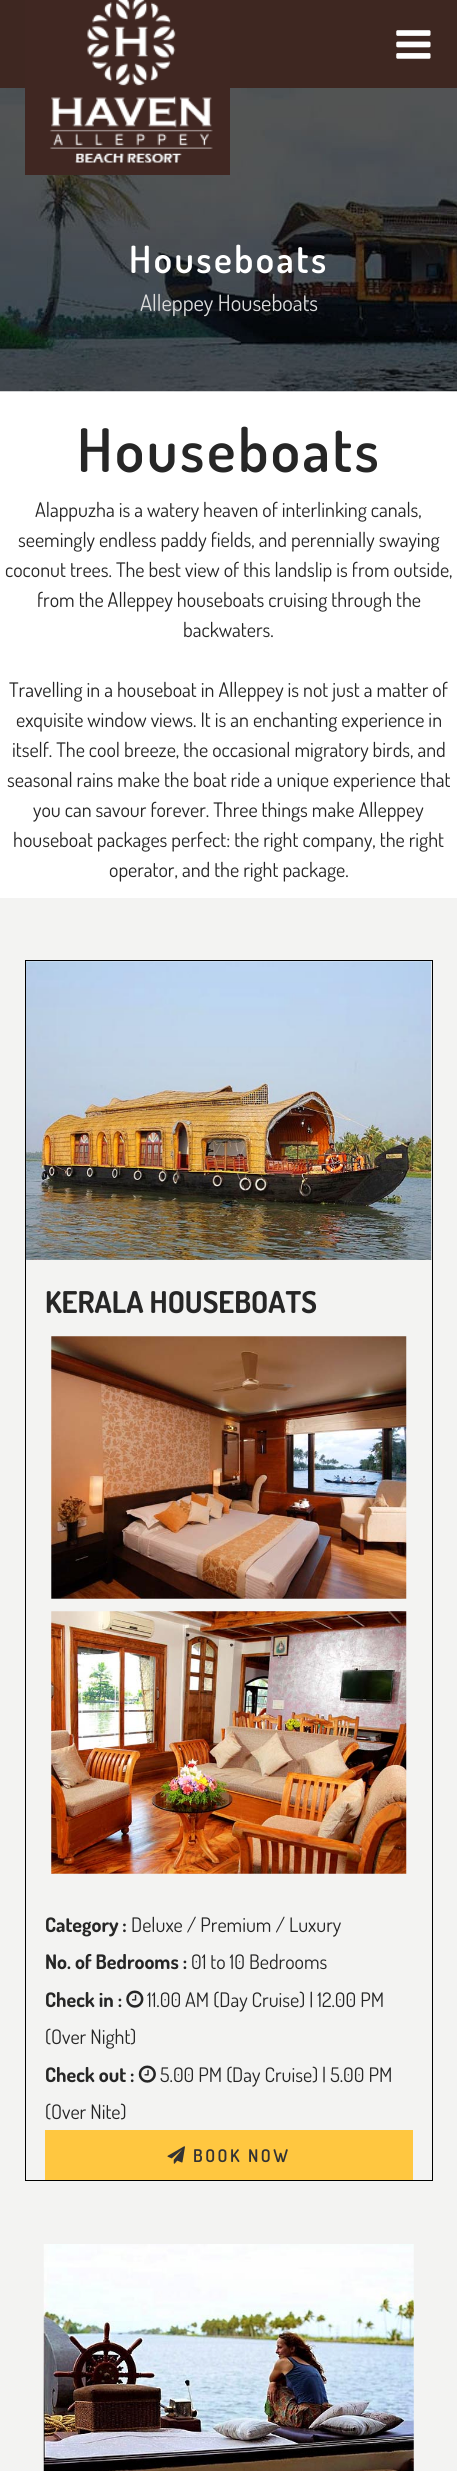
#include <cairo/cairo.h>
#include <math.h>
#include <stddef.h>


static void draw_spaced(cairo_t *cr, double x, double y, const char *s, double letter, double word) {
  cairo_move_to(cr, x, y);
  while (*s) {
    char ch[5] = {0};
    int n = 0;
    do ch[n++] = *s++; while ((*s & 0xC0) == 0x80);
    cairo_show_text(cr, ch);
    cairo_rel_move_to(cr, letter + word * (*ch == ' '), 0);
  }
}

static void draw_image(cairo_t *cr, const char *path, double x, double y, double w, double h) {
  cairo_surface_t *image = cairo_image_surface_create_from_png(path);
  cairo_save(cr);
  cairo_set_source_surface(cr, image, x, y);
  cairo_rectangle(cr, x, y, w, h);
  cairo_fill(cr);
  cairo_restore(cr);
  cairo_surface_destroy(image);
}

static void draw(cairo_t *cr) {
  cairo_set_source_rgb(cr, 1, 1, 1);
  cairo_paint(cr);
  cairo_set_source_rgb(cr, 62 / 255.0, 39 / 255.0, 33 / 255.0);
  cairo_rectangle(cr, 0, 0, 457, 88);
  cairo_fill(cr);
  draw_image(cr, "images/3.png", 0, 88, 457, 304);
  draw_image(cr, "images/1.png", 25, 0, 205, 175);
  draw_image(cr, "images/2.png", 396, 30, 35, 29);
  cairo_set_source_rgb(cr, 243 / 255.0, 243 / 255.0, 242 / 255.0);
  cairo_rectangle(cr, 0, 898, 457, 1573);
  cairo_fill(cr);
  cairo_rectangle(cr, 25.5, 960.5, 407, 1220);
  cairo_set_source_rgb(cr, 0, 0, 0);
  cairo_set_line_width(cr, 1);
  cairo_stroke(cr);
  draw_image(cr, "images/4.png", 26, 961, 406, 299);
  draw_image(cr, "images/5.png", 51, 1336, 356, 263);
  draw_image(cr, "images/6.png", 51, 1611, 356, 263);
  draw_image(cr, "images/7.png", 126, 1990, 18, 18);
  draw_image(cr, "images/8.png", 138, 2065, 18, 18);
  cairo_set_source_rgb(cr, 1, 199 / 255.0, 64 / 255.0);
  cairo_rectangle(cr, 45, 2130, 368, 50);
  cairo_fill(cr);
  draw_image(cr, "images/9.png", 167, 2146, 18, 18);
  draw_image(cr, "images/10.png", 43, 2244, 371, 227);
  cairo_select_font_face(cr, "Dosis SemiBold", CAIRO_FONT_SLANT_NORMAL, CAIRO_FONT_WEIGHT_NORMAL);
  cairo_set_font_size(cr, 37.5);
  cairo_set_source_rgb(cr, 1, 1, 1);
  draw_spaced(cr, 129, 273, "Houseboats", 2.5, 0);
  cairo_select_font_face(cr, "Dosis", CAIRO_FONT_SLANT_NORMAL, CAIRO_FONT_WEIGHT_NORMAL);
  cairo_set_font_size(cr, 22.5);
  cairo_set_source_rgb(cr, 220 / 255.0, 220 / 255.0, 220 / 255.0);
  cairo_move_to(cr, 140, 311);
  cairo_show_text(cr, "Alleppey Houseboats");
  cairo_select_font_face(cr, "Dosis SemiBold", CAIRO_FONT_SLANT_NORMAL, CAIRO_FONT_WEIGHT_NORMAL);
  cairo_set_font_size(cr, 60);
  cairo_set_source_rgb(cr, 38 / 255.0, 38 / 255.0, 38 / 255.0);
  draw_spaced(cr, 77, 472, "Houseboats", 2.5, 0);
  cairo_select_font_face(cr, "Dosis", CAIRO_FONT_SLANT_NORMAL, CAIRO_FONT_WEIGHT_NORMAL);
  cairo_set_font_size(cr, 20);
  cairo_move_to(cr, 35, 517);
  cairo_show_text(cr, "Alappuzha is a watery heaven of interlinking canals,");
  cairo_move_to(cr, 18, 547);
  cairo_show_text(cr, "seemingly endless paddy fields, and perennially swaying");
  cairo_move_to(cr, 5, 577);
  cairo_show_text(cr, "coconut trees. The best view of this landslip is from outside,");
  cairo_move_to(cr, 37, 607);
  cairo_show_text(cr, "from the Alleppey houseboats cruising through the");
  cairo_move_to(cr, 183, 637);
  cairo_show_text(cr, "backwaters.");
  cairo_move_to(cr, 9, 697);
  cairo_show_text(cr, "Travelling in a houseboat in Alleppey is not just a matter of");
  cairo_move_to(cr, 16, 727);
  cairo_show_text(cr, "exquisite window views. It is an enchanting experience in");
  cairo_move_to(cr, 12, 757);
  cairo_show_text(cr, "itself. The cool breeze, the occasional migratory birds, and");
  cairo_move_to(cr, 7, 787);
  cairo_show_text(cr, "seasonal rains make the boat ride a unique experience that");
  cairo_move_to(cr, 33, 817);
  cairo_show_text(cr, "you can savour forever. Three things make Alleppey");
  cairo_move_to(cr, 13, 847);
  cairo_show_text(cr, "houseboat packages perfect: the right company, the right");
  cairo_move_to(cr, 109, 877);
  cairo_show_text(cr, "operator, and the right package.");
  cairo_select_font_face(cr, "Dosis", CAIRO_FONT_SLANT_NORMAL, CAIRO_FONT_WEIGHT_BOLD);
  cairo_set_font_size(cr, 30);
  cairo_move_to(cr, 45, 1313);
  cairo_show_text(cr, "KERALA HOUSEBOATS");
  cairo_set_font_size(cr, 20);
  cairo_move_to(cr, 45, 1932);
  cairo_show_text(cr, "Category :");
  cairo_select_font_face(cr, "Dosis", CAIRO_FONT_SLANT_NORMAL, CAIRO_FONT_WEIGHT_NORMAL);
  cairo_move_to(cr, 131, 1932);
  cairo_show_text(cr, "Deluxe / Premium / Luxury");
  cairo_select_font_face(cr, "Dosis", CAIRO_FONT_SLANT_NORMAL, CAIRO_FONT_WEIGHT_BOLD);
  cairo_move_to(cr, 45, 1969);
  cairo_show_text(cr, "No. of Bedrooms :");
  cairo_select_font_face(cr, "Dosis", CAIRO_FONT_SLANT_NORMAL, CAIRO_FONT_WEIGHT_NORMAL);
  cairo_move_to(cr, 191, 1969);
  cairo_show_text(cr, "01 to 10 Bedrooms");
  cairo_select_font_face(cr, "Dosis", CAIRO_FONT_SLANT_NORMAL, CAIRO_FONT_WEIGHT_BOLD);
  cairo_move_to(cr, 45, 2007);
  cairo_show_text(cr, "Check in :");
  cairo_select_font_face(cr, "Dosis", CAIRO_FONT_SLANT_NORMAL, CAIRO_FONT_WEIGHT_NORMAL);
  cairo_move_to(cr, 147, 2007);
  cairo_show_text(cr, "11.00 AM (Day Cruise) | 12.00 PM");
  cairo_move_to(cr, 45, 2044);
  cairo_show_text(cr, "(Over Night)");
  cairo_select_font_face(cr, "Dosis", CAIRO_FONT_SLANT_NORMAL, CAIRO_FONT_WEIGHT_BOLD);
  cairo_move_to(cr, 45, 2082);
  cairo_show_text(cr, "Check out :");
  cairo_select_font_face(cr, "Dosis", CAIRO_FONT_SLANT_NORMAL, CAIRO_FONT_WEIGHT_NORMAL);
  cairo_move_to(cr, 160, 2082);
  cairo_show_text(cr, "5.00 PM (Day Cruise) | 5.00 PM");
  cairo_move_to(cr, 45, 2119);
  cairo_show_text(cr, "(Over Nite)");
  cairo_select_font_face(cr, "Dosis SemiBold", CAIRO_FONT_SLANT_NORMAL, CAIRO_FONT_WEIGHT_NORMAL);
  cairo_set_font_size(cr, 17.5);
  cairo_set_source_rgb(cr, 51 / 255.0, 51 / 255.0, 51 / 255.0);
  draw_spaced(cr, 193, 2162, "BOOK NOW", 2.5, 0);
}

int main(void) {
  cairo_surface_t *surface = cairo_image_surface_create(CAIRO_FORMAT_RGB24, 457, 2471);
  cairo_t *cr = cairo_create(surface);
  cairo_font_options_t *options = cairo_font_options_create();
  cairo_font_options_set_hint_metrics(options, CAIRO_HINT_METRICS_OFF);
  cairo_font_options_set_hint_style(options, CAIRO_HINT_STYLE_NONE);
  cairo_set_font_options(cr, options);
  cairo_set_miter_limit(cr, 4);
  draw(cr);
  cairo_surface_write_to_png(surface, "out.png");
  cairo_font_options_destroy(options);
  cairo_destroy(cr);
  cairo_surface_destroy(surface);
  return 0;
}
